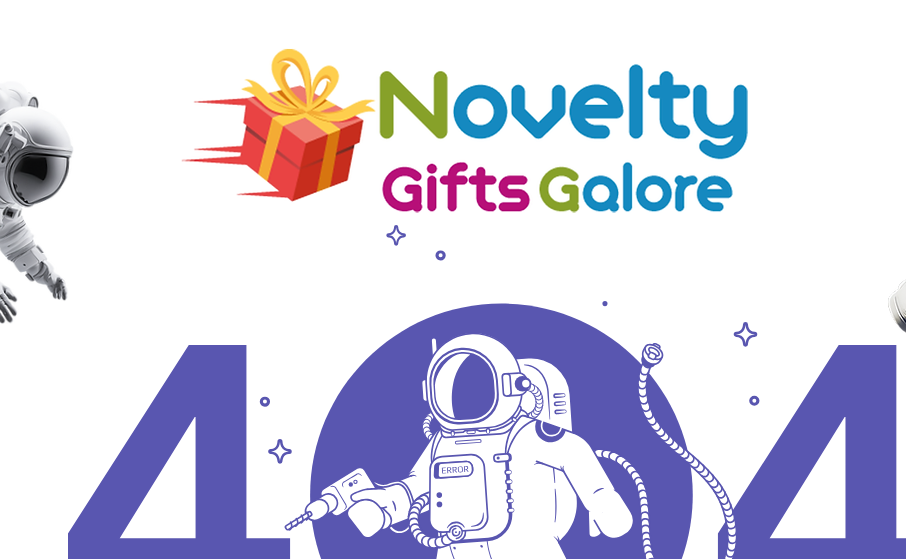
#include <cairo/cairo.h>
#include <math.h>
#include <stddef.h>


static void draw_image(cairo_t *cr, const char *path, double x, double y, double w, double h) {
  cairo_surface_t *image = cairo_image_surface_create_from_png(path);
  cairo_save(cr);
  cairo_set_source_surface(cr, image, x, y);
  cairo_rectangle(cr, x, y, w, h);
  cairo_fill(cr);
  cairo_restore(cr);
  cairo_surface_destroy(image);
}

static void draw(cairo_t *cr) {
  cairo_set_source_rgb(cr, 1, 1, 1);
  cairo_paint(cr);
  draw_image(cr, "images/1.png", 0, 81, 74, 243);
  draw_image(cr, "images/2.png", 181, 48, 567, 165);
  draw_image(cr, "images/3.png", 68, 225, 838, 334);
  draw_image(cr, "images/4.png", 888, 279, 18, 54);
}

int main(void) {
  cairo_surface_t *surface = cairo_image_surface_create(CAIRO_FORMAT_RGB24, 906, 559);
  cairo_t *cr = cairo_create(surface);
  cairo_font_options_t *options = cairo_font_options_create();
  cairo_font_options_set_hint_metrics(options, CAIRO_HINT_METRICS_OFF);
  cairo_font_options_set_hint_style(options, CAIRO_HINT_STYLE_NONE);
  cairo_set_font_options(cr, options);
  cairo_set_miter_limit(cr, 4);
  draw(cr);
  cairo_surface_write_to_png(surface, "out.png");
  cairo_font_options_destroy(options);
  cairo_destroy(cr);
  cairo_surface_destroy(surface);
  return 0;
}
